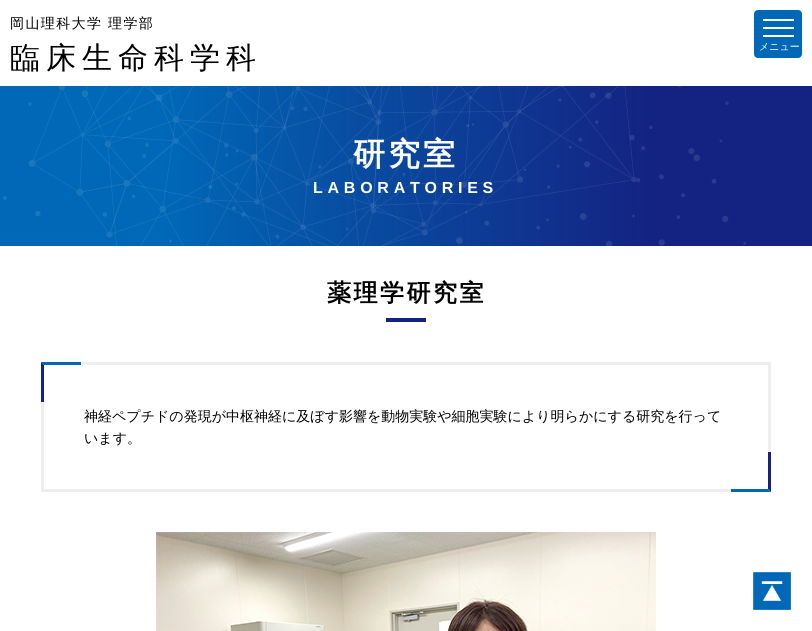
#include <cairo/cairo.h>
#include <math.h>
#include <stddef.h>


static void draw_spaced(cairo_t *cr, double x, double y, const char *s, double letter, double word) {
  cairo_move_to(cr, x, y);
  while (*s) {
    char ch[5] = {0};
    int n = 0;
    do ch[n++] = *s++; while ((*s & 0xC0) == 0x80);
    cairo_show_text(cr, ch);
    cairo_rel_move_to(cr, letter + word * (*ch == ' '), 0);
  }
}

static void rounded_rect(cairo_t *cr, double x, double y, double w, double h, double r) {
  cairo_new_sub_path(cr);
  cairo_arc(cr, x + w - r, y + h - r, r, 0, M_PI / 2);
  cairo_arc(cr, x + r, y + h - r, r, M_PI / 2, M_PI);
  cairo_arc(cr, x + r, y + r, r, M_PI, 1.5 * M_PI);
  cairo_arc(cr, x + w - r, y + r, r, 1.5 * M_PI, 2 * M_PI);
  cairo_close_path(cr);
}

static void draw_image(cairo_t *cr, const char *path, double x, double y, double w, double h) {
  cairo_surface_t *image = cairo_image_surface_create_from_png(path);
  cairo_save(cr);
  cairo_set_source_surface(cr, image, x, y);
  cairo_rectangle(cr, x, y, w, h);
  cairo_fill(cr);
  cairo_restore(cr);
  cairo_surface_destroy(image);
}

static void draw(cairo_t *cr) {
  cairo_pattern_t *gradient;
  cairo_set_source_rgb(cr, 1, 1, 1);
  cairo_paint(cr);
  cairo_set_source_rgb(cr, 0, 104 / 255.0, 183 / 255.0);
  rounded_rect(cr, 754, 10, 48, 48, 4);
  cairo_fill(cr);
  cairo_set_source_rgb(cr, 1, 1, 1);
  cairo_rectangle(cr, 763, 19, 31, 2);
  cairo_fill(cr);
  cairo_rectangle(cr, 763, 27, 31, 2);
  cairo_fill(cr);
  cairo_rectangle(cr, 763, 35, 31, 2);
  cairo_fill(cr);
  gradient = cairo_pattern_create_linear(0, 166, 812, 166);
  cairo_pattern_add_color_stop_rgba(gradient, 0.2, 0, 104 / 255.0, 183 / 255.0, 1);
  cairo_pattern_add_color_stop_rgba(gradient, 0.8, 20 / 255.0, 35 / 255.0, 130 / 255.0, 1);
  cairo_set_source(cr, gradient);
  cairo_pattern_destroy(gradient);
  cairo_rectangle(cr, 0, 86, 812, 160);
  cairo_fill(cr);
  draw_image(cr, "images/1.png", 3, 86, 743, 160);
  cairo_set_source_rgb(cr, 20 / 255.0, 35 / 255.0, 130 / 255.0);
  cairo_rectangle(cr, 386, 318, 40, 4);
  cairo_fill(cr);
  cairo_rectangle(cr, 42.5, 363.5, 727, 127);
  cairo_set_source_rgb(cr, 238 / 255.0, 238 / 255.0, 238 / 255.0);
  cairo_set_line_width(cr, 3);
  cairo_stroke(cr);
  cairo_set_source_rgb(cr, 0, 104 / 255.0, 183 / 255.0);
  cairo_new_path(cr);
  cairo_move_to(cr, 41, 362);
  cairo_line_to(cr, 81, 362);
  cairo_line_to(cr, 81, 365);
  cairo_line_to(cr, 44, 365);
  cairo_close_path(cr);
  cairo_fill(cr);
  cairo_set_source_rgb(cr, 20 / 255.0, 35 / 255.0, 130 / 255.0);
  cairo_new_path(cr);
  cairo_move_to(cr, 41, 402);
  cairo_line_to(cr, 41, 362);
  cairo_line_to(cr, 44, 365);
  cairo_line_to(cr, 44, 402);
  cairo_close_path(cr);
  cairo_fill(cr);
  cairo_new_path(cr);
  cairo_move_to(cr, 771, 452);
  cairo_line_to(cr, 771, 492);
  cairo_line_to(cr, 768, 489);
  cairo_line_to(cr, 768, 452);
  cairo_close_path(cr);
  cairo_fill(cr);
  cairo_set_source_rgb(cr, 0, 104 / 255.0, 183 / 255.0);
  cairo_new_path(cr);
  cairo_move_to(cr, 771, 492);
  cairo_line_to(cr, 731, 492);
  cairo_line_to(cr, 731, 489);
  cairo_line_to(cr, 768, 489);
  cairo_close_path(cr);
  cairo_fill(cr);
  draw_image(cr, "images/2.png", 156, 532, 500, 99);
  draw_image(cr, "images/3.png", 753, 572, 38, 38);
  cairo_select_font_face(cr, "WenQuanYi Zen Hei Medium", CAIRO_FONT_SLANT_NORMAL, CAIRO_FONT_WEIGHT_NORMAL);
  cairo_set_font_size(cr, 14);
  cairo_set_source_rgb(cr, 0, 0, 0);
  draw_spaced(cr, 10, 28, "岡山理科大学 理学部", 1.4, 0);
  cairo_set_font_size(cr, 30);
  draw_spaced(cr, 10, 68, "臨床生命科学科", 6, 0);
  cairo_set_font_size(cr, 10);
  cairo_set_source_rgb(cr, 1, 1, 1);
  cairo_move_to(cr, 759, 50);
  cairo_show_text(cr, "メニュー");
  cairo_select_font_face(cr, "WenQuanYi Zen Hei", CAIRO_FONT_SLANT_NORMAL, CAIRO_FONT_WEIGHT_BOLD);
  cairo_set_font_size(cr, 32);
  draw_spaced(cr, 353, 165, "研究室", 3, 0);
  cairo_select_font_face(cr, "Liberation Sans", CAIRO_FONT_SLANT_NORMAL, CAIRO_FONT_WEIGHT_BOLD);
  cairo_set_font_size(cr, 16);
  draw_spaced(cr, 313, 193, "LABORATORIES", 4.75, 0);
  cairo_select_font_face(cr, "WenQuanYi Zen Hei", CAIRO_FONT_SLANT_NORMAL, CAIRO_FONT_WEIGHT_BOLD);
  cairo_set_font_size(cr, 24);
  cairo_set_source_rgb(cr, 0, 0, 0);
  draw_spaced(cr, 327, 301, "薬理学研究室", 2.5, 0);
  cairo_select_font_face(cr, "WenQuanYi Zen Hei Medium", CAIRO_FONT_SLANT_NORMAL, CAIRO_FONT_WEIGHT_NORMAL);
  cairo_set_font_size(cr, 14);
  cairo_move_to(cr, 84, 421);
  cairo_show_text(cr, "神経ペプチドの発現が中枢神経に及ぼす影響を動物実験や細胞実験により明らかにする研究を行って");
  cairo_move_to(cr, 84, 443);
  cairo_show_text(cr, "います。");
}

int main(void) {
  cairo_surface_t *surface = cairo_image_surface_create(CAIRO_FORMAT_RGB24, 812, 631);
  cairo_t *cr = cairo_create(surface);
  cairo_font_options_t *options = cairo_font_options_create();
  cairo_font_options_set_hint_metrics(options, CAIRO_HINT_METRICS_OFF);
  cairo_font_options_set_hint_style(options, CAIRO_HINT_STYLE_NONE);
  cairo_set_font_options(cr, options);
  cairo_set_miter_limit(cr, 4);
  draw(cr);
  cairo_surface_write_to_png(surface, "out.png");
  cairo_font_options_destroy(options);
  cairo_destroy(cr);
  cairo_surface_destroy(surface);
  return 0;
}
